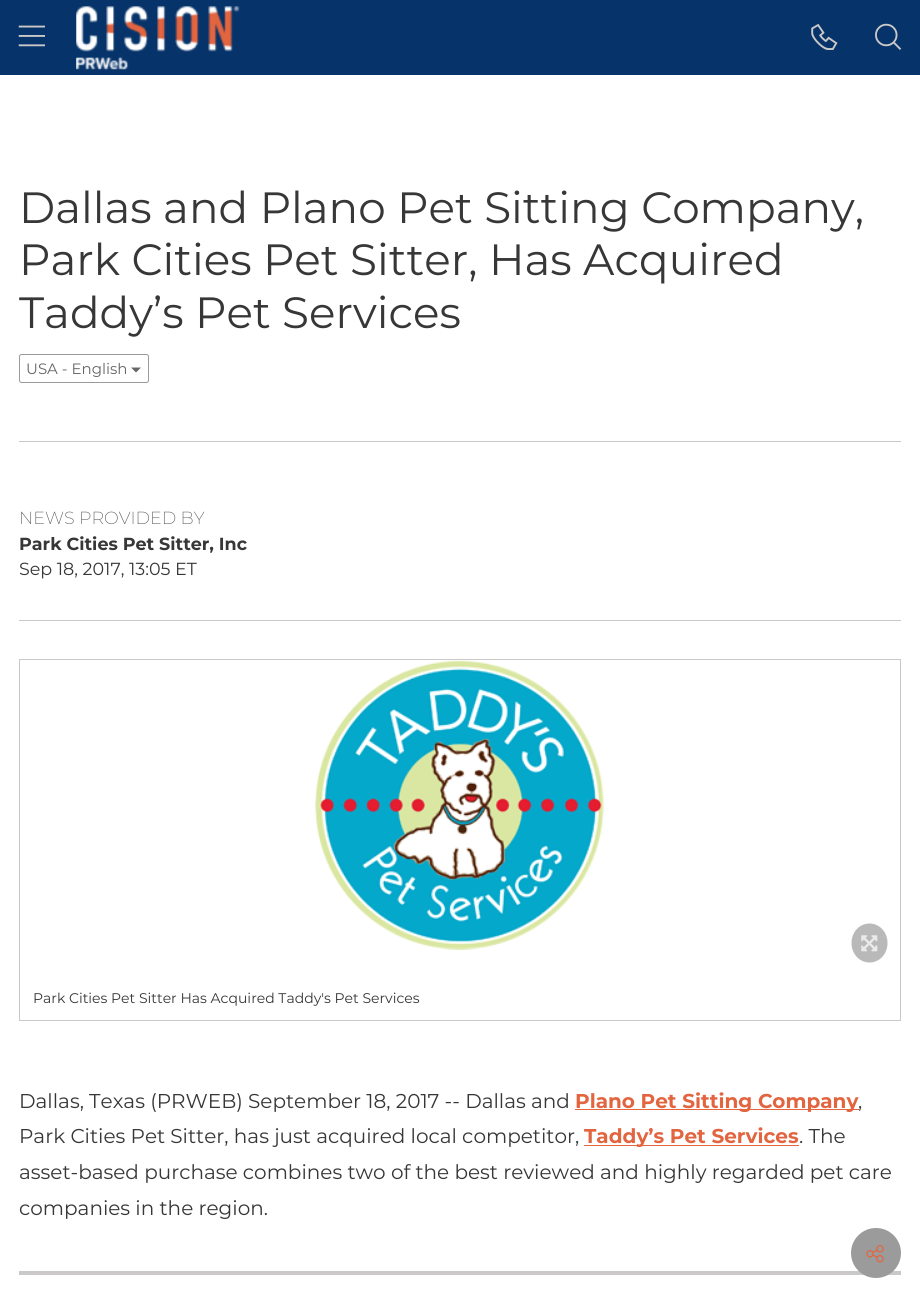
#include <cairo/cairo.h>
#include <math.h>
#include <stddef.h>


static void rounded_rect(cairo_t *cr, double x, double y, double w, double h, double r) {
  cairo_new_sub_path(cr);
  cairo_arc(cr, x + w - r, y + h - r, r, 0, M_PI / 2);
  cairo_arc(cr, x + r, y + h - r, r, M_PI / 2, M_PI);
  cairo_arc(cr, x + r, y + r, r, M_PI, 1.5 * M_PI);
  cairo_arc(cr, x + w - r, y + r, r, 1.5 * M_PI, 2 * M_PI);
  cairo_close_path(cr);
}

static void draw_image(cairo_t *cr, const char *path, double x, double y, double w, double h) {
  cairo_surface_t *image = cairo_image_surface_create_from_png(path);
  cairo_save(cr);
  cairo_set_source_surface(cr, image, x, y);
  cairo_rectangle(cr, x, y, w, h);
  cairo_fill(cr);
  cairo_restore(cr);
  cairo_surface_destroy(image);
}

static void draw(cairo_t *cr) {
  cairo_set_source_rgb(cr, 1, 1, 1);
  cairo_paint(cr);
  cairo_set_source_rgb(cr, 6 / 255.0, 51 / 255.0, 105 / 255.0);
  cairo_rectangle(cr, 0, 0, 920, 75);
  cairo_fill(cr);
  draw_image(cr, "images/1.png", 18, 25, 27, 22);
  draw_image(cr, "images/2.png", 76, 6, 164, 64);
  draw_image(cr, "images/3.png", 811, 23, 27, 27);
  draw_image(cr, "images/4.png", 875, 23, 27, 27);
  rounded_rect(cr, 19.5, 354.5, 129, 28, 2);
  cairo_set_source_rgb(cr, 155 / 255.0, 155 / 255.0, 155 / 255.0);
  cairo_set_line_width(cr, 1);
  cairo_stroke(cr);
  cairo_set_source_rgb(cr, 102 / 255.0, 102 / 255.0, 102 / 255.0);
  cairo_new_path(cr);
  cairo_move_to(cr, 131, 367.5);
  cairo_line_to(cr, 141, 367.5);
  cairo_line_to(cr, 136, 372.5);
  cairo_close_path(cr);
  cairo_fill(cr);
  cairo_set_source_rgb(cr, 202 / 255.0, 200 / 255.0, 200 / 255.0);
  cairo_rectangle(cr, 19, 441, 882, 1);
  cairo_fill(cr);
  cairo_rectangle(cr, 19, 1271, 882, 4);
  cairo_fill(cr);
  cairo_set_source_rgb(cr, 155 / 255.0, 155 / 255.0, 155 / 255.0);
  cairo_arc(cr, 876, 1253, 25, 0, 2 * M_PI);
  cairo_fill(cr);
  draw_image(cr, "images/5.png", 866, 1245, 18, 18);
  cairo_set_source_rgb(cr, 202 / 255.0, 200 / 255.0, 200 / 255.0);
  cairo_rectangle(cr, 19, 620, 882, 1);
  cairo_fill(cr);
  cairo_rectangle(cr, 19.5, 659.5, 881, 361);
  cairo_stroke(cr);
  draw_image(cr, "images/6.png", 315, 660, 290, 290);
  cairo_set_source_rgb(cr, 185 / 255.0, 185 / 255.0, 185 / 255.0);
  cairo_new_path(cr);
  cairo_move_to(cr, 869.5, 923.5);
  cairo_curve_to(cr, 879.5, 923.5, 887.5, 932, 887.5, 943);
  cairo_curve_to(cr, 887.5, 954, 879.5, 962.5, 869.5, 962.5);
  cairo_curve_to(cr, 859.5, 962.5, 851.5, 954, 851.5, 943);
  cairo_curve_to(cr, 851.5, 932, 859.5, 923.5, 869.5, 923.5);
  cairo_close_path(cr);
  cairo_fill(cr);
  draw_image(cr, "images/7.png", 861, 935, 17, 17);
  cairo_set_source_rgb(cr, 226 / 255.0, 101 / 255.0, 64 / 255.0);
  cairo_rectangle(cr, 575, 1109, 284, 1);
  cairo_fill(cr);
  cairo_rectangle(cr, 584, 1145, 215, 1);
  cairo_fill(cr);
  cairo_select_font_face(cr, "Montserrat", CAIRO_FONT_SLANT_NORMAL, CAIRO_FONT_WEIGHT_NORMAL);
  cairo_set_font_size(cr, 43.75);
  cairo_set_source_rgb(cr, 55 / 255.0, 55 / 255.0, 55 / 255.0);
  cairo_move_to(cr, 19, 223);
  cairo_show_text(cr, "Dallas and Plano Pet Sitting Company,");
  cairo_move_to(cr, 19, 275);
  cairo_show_text(cr, "Park Cities Pet Sitter, Has Acquired");
  cairo_move_to(cr, 19, 328);
  cairo_show_text(cr, "Taddy’s Pet Services");
  cairo_set_font_size(cr, 15);
  cairo_set_source_rgb(cr, 102 / 255.0, 102 / 255.0, 102 / 255.0);
  cairo_move_to(cr, 26, 374);
  cairo_show_text(cr, "USA - English");
  cairo_select_font_face(cr, "Montserrat ExtraLight", CAIRO_FONT_SLANT_NORMAL, CAIRO_FONT_WEIGHT_NORMAL);
  cairo_set_font_size(cr, 17.5);
  cairo_set_source_rgb(cr, 87 / 255.0, 87 / 255.0, 87 / 255.0);
  cairo_move_to(cr, 19, 524);
  cairo_show_text(cr, "NEWS PROVIDED BY");
  cairo_select_font_face(cr, "Montserrat", CAIRO_FONT_SLANT_NORMAL, CAIRO_FONT_WEIGHT_BOLD);
  cairo_set_source_rgb(cr, 55 / 255.0, 55 / 255.0, 55 / 255.0);
  cairo_move_to(cr, 19, 550);
  cairo_show_text(cr, "Park Cities Pet Sitter, Inc");
  cairo_select_font_face(cr, "Montserrat", CAIRO_FONT_SLANT_NORMAL, CAIRO_FONT_WEIGHT_NORMAL);
  cairo_move_to(cr, 19, 575);
  cairo_show_text(cr, "Sep 18, 2017, 13:05 ET");
  cairo_set_font_size(cr, 14);
  cairo_move_to(cr, 33, 1003);
  cairo_show_text(cr, "Park Cities Pet Sitter Has Acquired Taddy's Pet Services");
  cairo_set_font_size(cr, 20);
  cairo_move_to(cr, 19, 1108);
  cairo_show_text(cr, "Dallas, Texas (PRWEB) September 18, 2017 -- Dallas and");
  cairo_select_font_face(cr, "Montserrat", CAIRO_FONT_SLANT_NORMAL, CAIRO_FONT_WEIGHT_BOLD);
  cairo_set_source_rgb(cr, 226 / 255.0, 101 / 255.0, 64 / 255.0);
  cairo_move_to(cr, 575, 1108);
  cairo_show_text(cr, "Plano Pet Sitting Company");
  cairo_select_font_face(cr, "Montserrat", CAIRO_FONT_SLANT_NORMAL, CAIRO_FONT_WEIGHT_NORMAL);
  cairo_set_source_rgb(cr, 55 / 255.0, 55 / 255.0, 55 / 255.0);
  cairo_move_to(cr, 858, 1108);
  cairo_show_text(cr, ",");
  cairo_move_to(cr, 19, 1143);
  cairo_show_text(cr, "Park Cities Pet Sitter, has just acquired local competitor,");
  cairo_select_font_face(cr, "Montserrat", CAIRO_FONT_SLANT_NORMAL, CAIRO_FONT_WEIGHT_BOLD);
  cairo_set_source_rgb(cr, 226 / 255.0, 101 / 255.0, 64 / 255.0);
  cairo_move_to(cr, 584, 1143);
  cairo_show_text(cr, "Taddy’s Pet Services");
  cairo_select_font_face(cr, "Montserrat", CAIRO_FONT_SLANT_NORMAL, CAIRO_FONT_WEIGHT_NORMAL);
  cairo_set_source_rgb(cr, 55 / 255.0, 55 / 255.0, 55 / 255.0);
  cairo_move_to(cr, 799, 1143);
  cairo_show_text(cr, ". The");
  cairo_move_to(cr, 19, 1179);
  cairo_show_text(cr, "asset-based purchase combines two of the best reviewed and highly regarded pet care");
  cairo_move_to(cr, 19, 1215);
  cairo_show_text(cr, "companies in the region.");
}

int main(void) {
  cairo_surface_t *surface = cairo_image_surface_create(CAIRO_FORMAT_RGB24, 920, 1296);
  cairo_t *cr = cairo_create(surface);
  cairo_font_options_t *options = cairo_font_options_create();
  cairo_font_options_set_hint_metrics(options, CAIRO_HINT_METRICS_OFF);
  cairo_font_options_set_hint_style(options, CAIRO_HINT_STYLE_NONE);
  cairo_set_font_options(cr, options);
  cairo_set_miter_limit(cr, 4);
  draw(cr);
  cairo_surface_write_to_png(surface, "out.png");
  cairo_font_options_destroy(options);
  cairo_destroy(cr);
  cairo_surface_destroy(surface);
  return 0;
}
